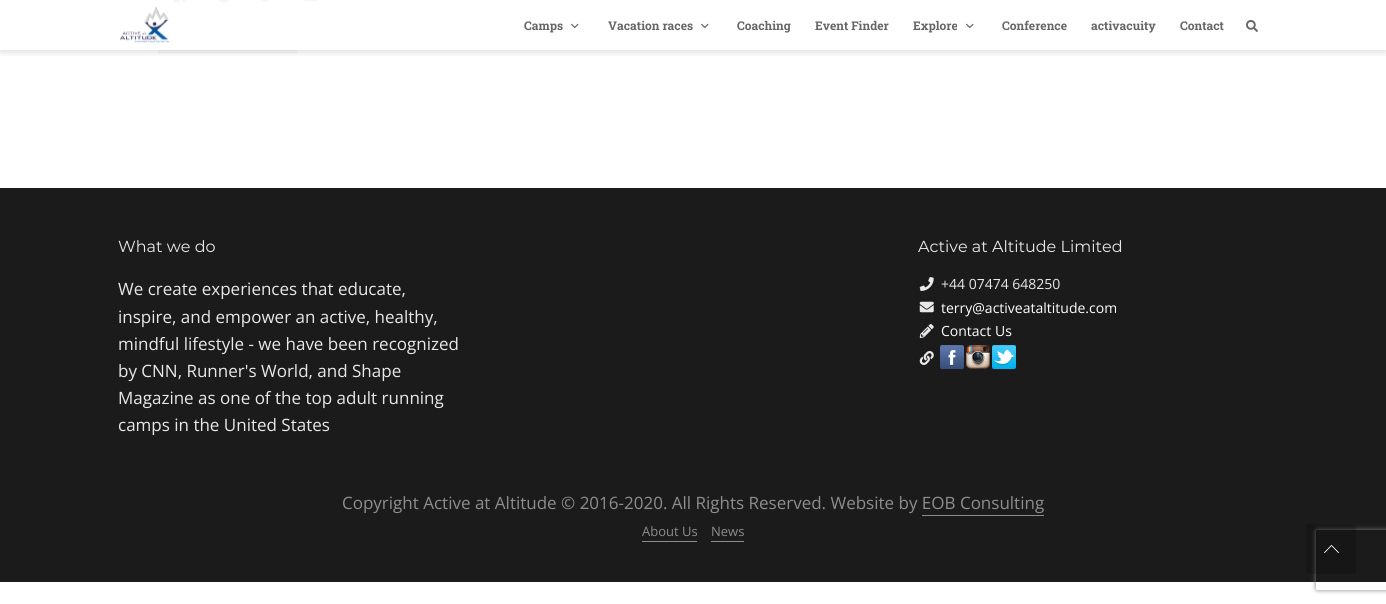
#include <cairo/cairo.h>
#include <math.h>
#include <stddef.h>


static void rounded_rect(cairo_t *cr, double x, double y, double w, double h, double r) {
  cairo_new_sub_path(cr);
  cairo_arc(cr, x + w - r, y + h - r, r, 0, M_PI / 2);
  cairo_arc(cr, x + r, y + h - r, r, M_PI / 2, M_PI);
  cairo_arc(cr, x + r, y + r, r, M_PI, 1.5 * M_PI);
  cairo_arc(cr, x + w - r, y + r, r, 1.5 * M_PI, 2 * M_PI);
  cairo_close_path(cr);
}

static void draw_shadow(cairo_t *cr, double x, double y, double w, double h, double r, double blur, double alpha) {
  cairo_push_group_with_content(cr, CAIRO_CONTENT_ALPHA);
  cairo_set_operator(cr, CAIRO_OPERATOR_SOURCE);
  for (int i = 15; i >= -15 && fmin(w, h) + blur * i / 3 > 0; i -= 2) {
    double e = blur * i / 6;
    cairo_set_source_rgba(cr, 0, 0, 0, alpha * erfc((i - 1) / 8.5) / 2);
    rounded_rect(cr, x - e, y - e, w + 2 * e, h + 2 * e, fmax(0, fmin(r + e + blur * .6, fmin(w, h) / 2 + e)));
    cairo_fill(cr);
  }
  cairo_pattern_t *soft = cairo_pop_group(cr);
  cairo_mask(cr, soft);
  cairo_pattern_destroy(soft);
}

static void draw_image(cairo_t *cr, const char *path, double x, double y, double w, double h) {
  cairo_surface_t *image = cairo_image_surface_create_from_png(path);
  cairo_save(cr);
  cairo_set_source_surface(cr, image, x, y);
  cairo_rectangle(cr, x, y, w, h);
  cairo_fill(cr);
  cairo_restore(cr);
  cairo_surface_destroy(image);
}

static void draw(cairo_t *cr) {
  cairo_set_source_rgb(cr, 1, 1, 1);
  cairo_paint(cr);
  draw_image(cr, "images/4.png", 173, 0, 13, 3);
  draw_image(cr, "images/5.png", 218, 0, 11, 3);
  draw_image(cr, "images/6.png", 260, 0, 9, 2);
  draw_image(cr, "images/7.png", 303, 0, 15, 2);
  cairo_set_source_rgb(cr, 248 / 255.0, 248 / 255.0, 248 / 255.0);
  cairo_rectangle(cr, 158, 50, 139, 4);
  cairo_fill(cr);
  cairo_save(cr);
  cairo_rectangle(cr, 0, 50, 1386, 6);
  cairo_clip(cr);
  cairo_set_source_rgb(cr, 0, 0, 0);
  draw_shadow(cr, 0, 0, 1386, 50, 0, 5, 0.2);
  cairo_restore(cr);
  draw_image(cr, "images/1.png", 120, 6, 50, 37);
  draw_image(cr, "images/2.png", 571, 23, 8, 6);
  draw_image(cr, "images/2.png", 701, 23, 8, 6);
  draw_image(cr, "images/2.png", 966, 23, 8, 6);
  draw_image(cr, "images/3.png", 1246, 20, 12, 12);
  cairo_set_source_rgb(cr, 27 / 255.0, 27 / 255.0, 27 / 255.0);
  cairo_rectangle(cr, 0, 188, 1386, 394);
  cairo_fill(cr);
  draw_image(cr, "images/8.png", 919, 277, 15, 14);
  draw_image(cr, "images/9.png", 919, 301, 15, 12);
  draw_image(cr, "images/10.png", 919, 324, 15, 14);
  draw_image(cr, "images/11.png", 919, 351, 15, 14);
  draw_image(cr, "images/12.png", 940, 345, 24, 24);
  draw_image(cr, "images/13.png", 966, 345, 24, 24);
  draw_image(cr, "images/14.png", 992, 345, 24, 24);
  cairo_set_source_rgb(cr, 141 / 255.0, 141 / 255.0, 141 / 255.0);
  cairo_rectangle(cr, 922, 515, 122, 1);
  cairo_fill(cr);
  cairo_rectangle(cr, 642, 541, 55, 1);
  cairo_fill(cr);
  cairo_rectangle(cr, 711, 541, 33, 1);
  cairo_fill(cr);
  cairo_save(cr);
  cairo_set_fill_rule(cr, CAIRO_FILL_RULE_EVEN_ODD);
  cairo_new_path(cr);
  cairo_move_to(cr, 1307, 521);
  cairo_line_to(cr, 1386, 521);
  cairo_line_to(cr, 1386, 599);
  cairo_line_to(cr, 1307, 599);
  cairo_close_path(cr);
  cairo_move_to(cr, 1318, 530);
  cairo_line_to(cr, 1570, 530);
  cairo_curve_to(cr, 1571, 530, 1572, 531, 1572, 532);
  cairo_line_to(cr, 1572, 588);
  cairo_curve_to(cr, 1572, 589, 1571, 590, 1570, 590);
  cairo_line_to(cr, 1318, 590);
  cairo_curve_to(cr, 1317, 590, 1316, 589, 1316, 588);
  cairo_line_to(cr, 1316, 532);
  cairo_curve_to(cr, 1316, 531, 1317, 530, 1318, 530);
  cairo_close_path(cr);
  cairo_clip(cr);
  cairo_set_source_rgb(cr, 128 / 255.0, 128 / 255.0, 128 / 255.0);
  draw_shadow(cr, 1316, 530, 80, 60, 2, 2.5, 1);
  cairo_restore(cr);
  cairo_set_source_rgba(cr, 0, 0, 0, 0.2);
  rounded_rect(cr, 1306, 524, 50, 50, 4);
  cairo_fill(cr);
  draw_image(cr, "images/15.png", 1324, 545, 15, 8);
  cairo_select_font_face(cr, "Roboto Slab", CAIRO_FONT_SLANT_NORMAL, CAIRO_FONT_WEIGHT_BOLD);
  cairo_set_font_size(cr, 12);
  cairo_set_source_rgb(cr, 102 / 255.0, 102 / 255.0, 102 / 255.0);
  cairo_move_to(cr, 524, 30);
  cairo_show_text(cr, "Camps");
  cairo_move_to(cr, 608, 30);
  cairo_show_text(cr, "Vacation races");
  cairo_move_to(cr, 737, 30);
  cairo_show_text(cr, "Coaching");
  cairo_move_to(cr, 815, 30);
  cairo_show_text(cr, "Event Finder");
  cairo_move_to(cr, 913, 30);
  cairo_show_text(cr, "Explore");
  cairo_move_to(cr, 1002, 30);
  cairo_show_text(cr, "Conference");
  cairo_move_to(cr, 1091, 30);
  cairo_show_text(cr, "activacuity");
  cairo_move_to(cr, 1180, 30);
  cairo_show_text(cr, "Contact");
  cairo_select_font_face(cr, "Montserrat", CAIRO_FONT_SLANT_NORMAL, CAIRO_FONT_WEIGHT_NORMAL);
  cairo_set_font_size(cr, 16);
  cairo_set_source_rgb(cr, 232 / 255.0, 232 / 255.0, 232 / 255.0);
  cairo_move_to(cr, 118, 252);
  cairo_show_text(cr, "What we do");
  cairo_select_font_face(cr, "Open Sans", CAIRO_FONT_SLANT_NORMAL, CAIRO_FONT_WEIGHT_NORMAL);
  cairo_set_font_size(cr, 17);
  cairo_move_to(cr, 118, 295);
  cairo_show_text(cr, "We create experiences that educate,");
  cairo_move_to(cr, 118, 323);
  cairo_show_text(cr, "inspire, and empower an active, healthy,");
  cairo_move_to(cr, 118, 350);
  cairo_show_text(cr, "mindful lifestyle - we have been recognized");
  cairo_move_to(cr, 118, 377);
  cairo_show_text(cr, "by CNN, Runner's World, and Shape");
  cairo_move_to(cr, 118, 404);
  cairo_show_text(cr, "Magazine as one of the top adult running");
  cairo_move_to(cr, 118, 431);
  cairo_show_text(cr, "camps in the United States");
  cairo_select_font_face(cr, "Montserrat", CAIRO_FONT_SLANT_NORMAL, CAIRO_FONT_WEIGHT_NORMAL);
  cairo_set_font_size(cr, 16);
  cairo_move_to(cr, 918, 252);
  cairo_show_text(cr, "Active at Altitude Limited");
  cairo_select_font_face(cr, "Open Sans", CAIRO_FONT_SLANT_NORMAL, CAIRO_FONT_WEIGHT_NORMAL);
  cairo_set_font_size(cr, 14);
  cairo_move_to(cr, 941, 289);
  cairo_show_text(cr, "+44 07474 648250");
  cairo_set_source_rgb(cr, 1, 1, 1);
  cairo_move_to(cr, 941, 313);
  cairo_show_text(cr, "terry@activeataltitude.com");
  cairo_move_to(cr, 941, 336);
  cairo_show_text(cr, "Contact Us");
  cairo_set_font_size(cr, 17);
  cairo_set_source_rgb(cr, 141 / 255.0, 141 / 255.0, 141 / 255.0);
  cairo_move_to(cr, 342, 509);
  cairo_show_text(cr, "Copyright Active at Altitude © 2016-2020. All Rights Reserved. Website by EOB Consulting");
  cairo_set_font_size(cr, 13);
  cairo_move_to(cr, 642, 536);
  cairo_show_text(cr, "About Us");
  cairo_move_to(cr, 711, 536);
  cairo_show_text(cr, "News");
}

int main(void) {
  cairo_surface_t *surface = cairo_image_surface_create(CAIRO_FORMAT_RGB24, 1386, 604);
  cairo_t *cr = cairo_create(surface);
  cairo_font_options_t *options = cairo_font_options_create();
  cairo_font_options_set_hint_metrics(options, CAIRO_HINT_METRICS_OFF);
  cairo_font_options_set_hint_style(options, CAIRO_HINT_STYLE_NONE);
  cairo_set_font_options(cr, options);
  cairo_set_miter_limit(cr, 4);
  draw(cr);
  cairo_surface_write_to_png(surface, "out.png");
  cairo_font_options_destroy(options);
  cairo_destroy(cr);
  cairo_surface_destroy(surface);
  return 0;
}
